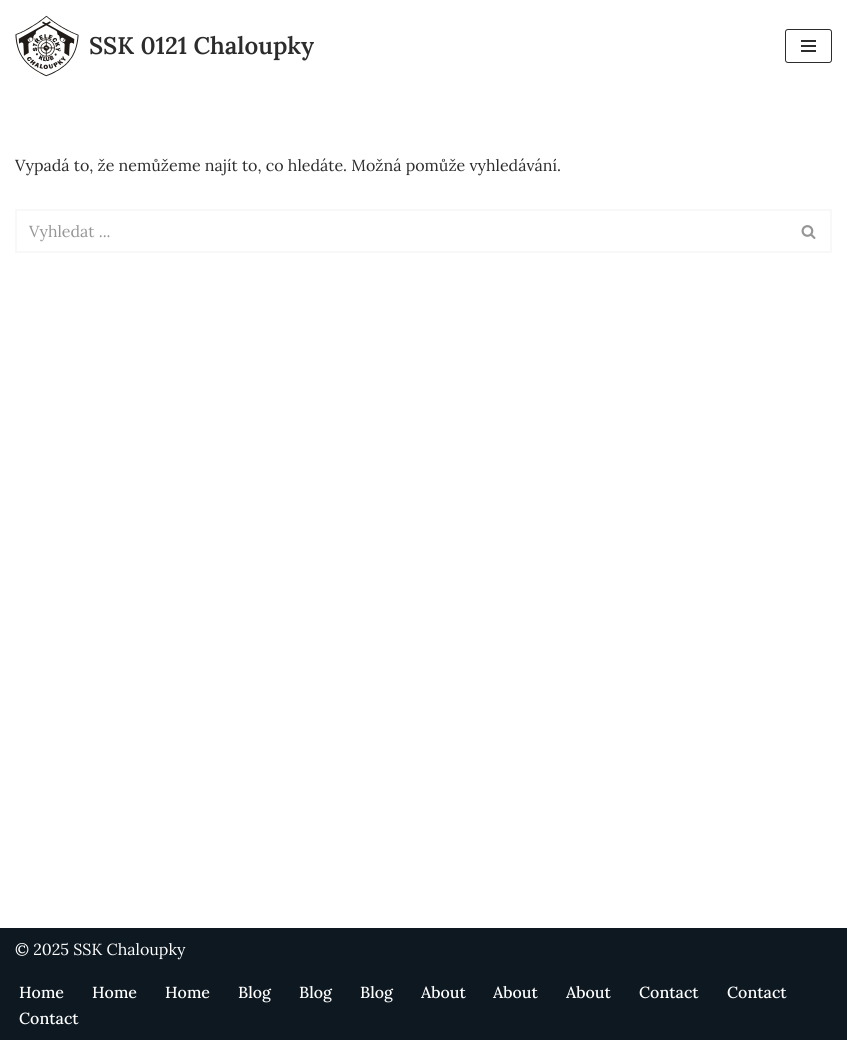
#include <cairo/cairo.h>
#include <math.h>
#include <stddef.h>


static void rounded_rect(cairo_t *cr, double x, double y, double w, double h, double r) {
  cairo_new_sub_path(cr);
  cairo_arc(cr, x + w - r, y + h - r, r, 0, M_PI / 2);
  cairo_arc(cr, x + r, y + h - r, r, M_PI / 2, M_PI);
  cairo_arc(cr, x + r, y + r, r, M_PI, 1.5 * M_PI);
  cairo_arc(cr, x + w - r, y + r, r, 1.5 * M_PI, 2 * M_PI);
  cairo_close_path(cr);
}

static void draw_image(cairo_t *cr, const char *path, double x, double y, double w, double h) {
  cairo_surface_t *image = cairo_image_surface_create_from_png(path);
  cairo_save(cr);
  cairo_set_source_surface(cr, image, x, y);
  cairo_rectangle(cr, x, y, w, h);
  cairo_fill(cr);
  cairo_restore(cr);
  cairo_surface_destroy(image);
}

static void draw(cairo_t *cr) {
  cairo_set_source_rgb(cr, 1, 1, 1);
  cairo_paint(cr);
  draw_image(cr, "images/1.png", 15, 15, 64, 62);
  rounded_rect(cr, 785.5, 29.5, 46, 33, 2.5);
  cairo_set_source_rgb(cr, 44 / 255.0, 44 / 255.0, 44 / 255.0);
  cairo_set_line_width(cr, 1);
  cairo_stroke(cr);
  cairo_rectangle(cr, 801, 40, 15, 2);
  cairo_fill(cr);
  cairo_rectangle(cr, 801, 45, 15, 2);
  cairo_fill(cr);
  cairo_rectangle(cr, 801, 50, 15, 2);
  cairo_fill(cr);
  cairo_set_source_rgb(cr, 248 / 255.0, 248 / 255.0, 248 / 255.0);
  cairo_rectangle(cr, 15, 209, 817, 2);
  cairo_fill(cr);
  cairo_rectangle(cr, 15, 251, 772, 2);
  cairo_fill(cr);
  cairo_rectangle(cr, 15, 209, 2, 44);
  cairo_fill(cr);
  cairo_rectangle(cr, 830, 209, 2, 44);
  cairo_fill(cr);
  cairo_rectangle(cr, 787, 251, 45, 2);
  cairo_fill(cr);
  draw_image(cr, "images/2.png", 801, 225, 15, 14);
  cairo_set_source_rgb(cr, 13 / 255.0, 24 / 255.0, 33 / 255.0);
  cairo_rectangle(cr, 0, 928, 847, 112);
  cairo_fill(cr);
  cairo_select_font_face(cr, "Lora SemiBold", CAIRO_FONT_SLANT_NORMAL, CAIRO_FONT_WEIGHT_NORMAL);
  cairo_set_font_size(cr, 24);
  cairo_set_source_rgb(cr, 44 / 255.0, 44 / 255.0, 44 / 255.0);
  cairo_move_to(cr, 89, 54);
  cairo_show_text(cr, "SSK 0121 Chaloupky");
  cairo_select_font_face(cr, "Lora", CAIRO_FONT_SLANT_NORMAL, CAIRO_FONT_WEIGHT_NORMAL);
  cairo_set_font_size(cr, 16);
  cairo_move_to(cr, 15, 171);
  cairo_show_text(cr, "Vypadá to, že nemůžeme najít to, co hledáte. Možná pomůže vyhledávání.");
  cairo_set_source_rgb(cr, 150 / 255.0, 150 / 255.0, 150 / 255.0);
  cairo_move_to(cr, 29, 237);
  cairo_show_text(cr, "Vyhledat ...");
  cairo_set_source_rgb(cr, 1, 1, 1);
  cairo_move_to(cr, 15, 955);
  cairo_show_text(cr, "© 2025 SSK Chaloupky");
  cairo_select_font_face(cr, "Lora Medium", CAIRO_FONT_SLANT_NORMAL, CAIRO_FONT_WEIGHT_NORMAL);
  cairo_move_to(cr, 19, 998);
  cairo_show_text(cr, "Home");
  cairo_move_to(cr, 92, 998);
  cairo_show_text(cr, "Home");
  cairo_move_to(cr, 165, 998);
  cairo_show_text(cr, "Home");
  cairo_move_to(cr, 238, 998);
  cairo_show_text(cr, "Blog");
  cairo_move_to(cr, 299, 998);
  cairo_show_text(cr, "Blog");
  cairo_move_to(cr, 360, 998);
  cairo_show_text(cr, "Blog");
  cairo_move_to(cr, 421, 998);
  cairo_show_text(cr, "About");
  cairo_move_to(cr, 493, 998);
  cairo_show_text(cr, "About");
  cairo_move_to(cr, 566, 998);
  cairo_show_text(cr, "About");
  cairo_move_to(cr, 639, 998);
  cairo_show_text(cr, "Contact");
  cairo_move_to(cr, 727, 998);
  cairo_show_text(cr, "Contact");
  cairo_move_to(cr, 19, 1024);
  cairo_show_text(cr, "Contact");
}

int main(void) {
  cairo_surface_t *surface = cairo_image_surface_create(CAIRO_FORMAT_RGB24, 847, 1040);
  cairo_t *cr = cairo_create(surface);
  cairo_font_options_t *options = cairo_font_options_create();
  cairo_font_options_set_hint_metrics(options, CAIRO_HINT_METRICS_OFF);
  cairo_font_options_set_hint_style(options, CAIRO_HINT_STYLE_NONE);
  cairo_set_font_options(cr, options);
  cairo_set_miter_limit(cr, 4);
  draw(cr);
  cairo_surface_write_to_png(surface, "out.png");
  cairo_font_options_destroy(options);
  cairo_destroy(cr);
  cairo_surface_destroy(surface);
  return 0;
}
